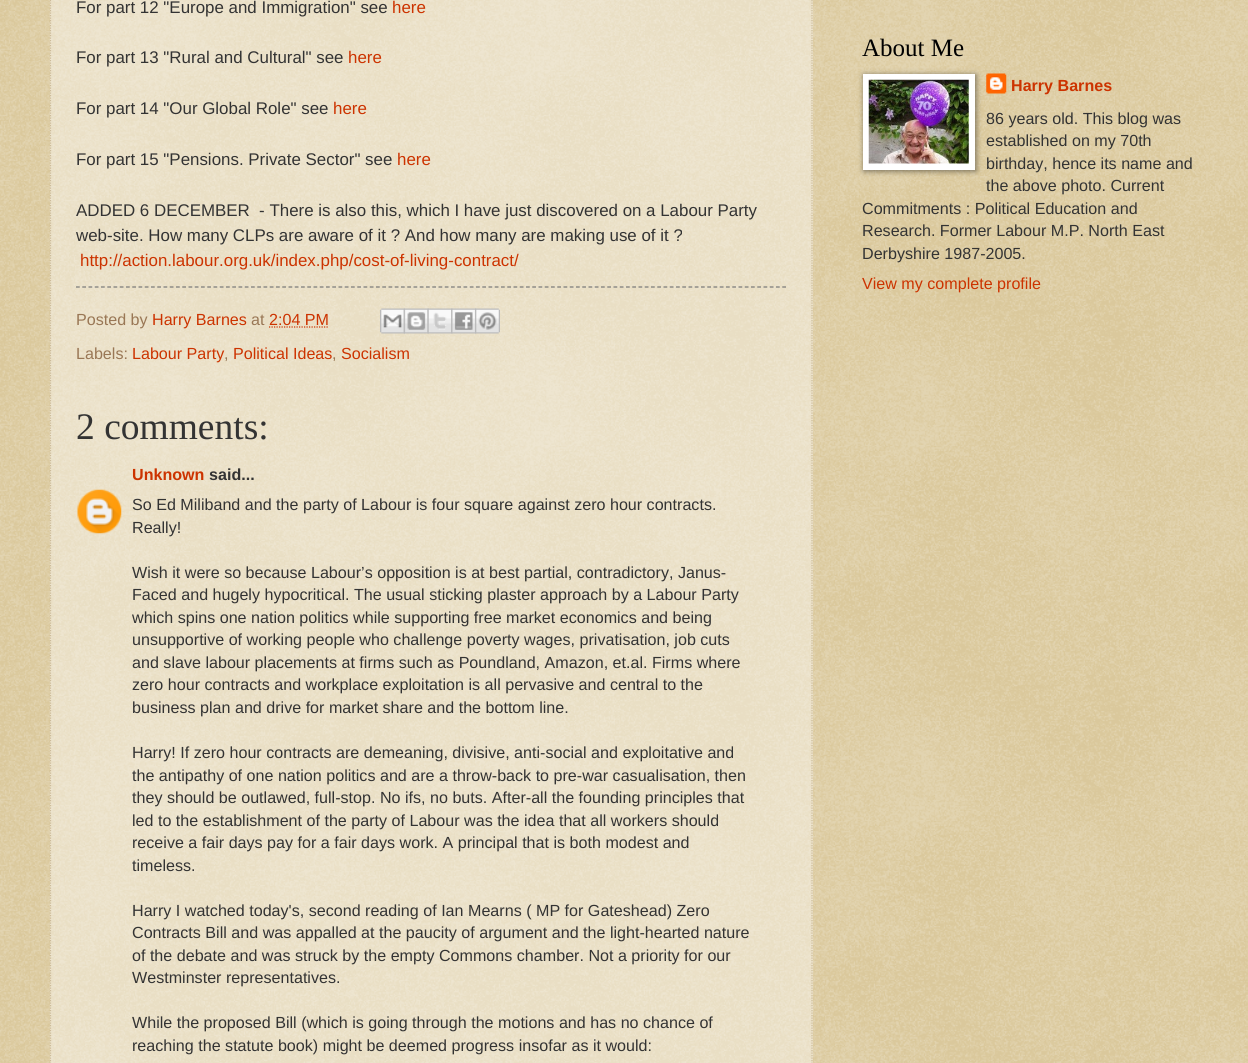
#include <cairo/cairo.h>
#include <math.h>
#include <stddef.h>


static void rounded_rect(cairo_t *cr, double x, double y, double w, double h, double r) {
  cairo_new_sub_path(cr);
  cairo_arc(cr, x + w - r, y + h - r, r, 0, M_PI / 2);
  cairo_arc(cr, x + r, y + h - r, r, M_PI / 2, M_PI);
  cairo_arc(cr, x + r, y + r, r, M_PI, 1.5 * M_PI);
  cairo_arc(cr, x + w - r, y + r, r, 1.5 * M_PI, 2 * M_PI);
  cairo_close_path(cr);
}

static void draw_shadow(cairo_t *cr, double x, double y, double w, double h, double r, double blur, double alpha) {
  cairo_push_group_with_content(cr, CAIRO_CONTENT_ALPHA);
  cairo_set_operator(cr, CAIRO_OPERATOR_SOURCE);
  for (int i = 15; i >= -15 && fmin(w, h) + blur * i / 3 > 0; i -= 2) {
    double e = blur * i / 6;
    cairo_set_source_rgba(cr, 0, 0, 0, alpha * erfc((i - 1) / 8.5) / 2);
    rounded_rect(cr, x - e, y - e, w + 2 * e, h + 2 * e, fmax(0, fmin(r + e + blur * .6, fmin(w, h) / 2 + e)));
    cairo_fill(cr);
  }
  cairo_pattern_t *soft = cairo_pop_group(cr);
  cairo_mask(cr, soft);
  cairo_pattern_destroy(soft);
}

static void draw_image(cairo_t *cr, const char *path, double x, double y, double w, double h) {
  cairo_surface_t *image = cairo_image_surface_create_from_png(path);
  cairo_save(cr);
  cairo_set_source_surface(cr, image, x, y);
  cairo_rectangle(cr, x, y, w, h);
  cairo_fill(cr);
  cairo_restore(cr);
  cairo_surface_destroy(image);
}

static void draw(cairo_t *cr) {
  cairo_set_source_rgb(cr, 192 / 255.0, 161 / 255.0, 84 / 255.0);
  cairo_paint(cr);
  draw_image(cr, "images/1.png", 0, 0, 1248, 1063);
  cairo_set_source_rgba(cr, 1, 1, 1, 0.4);
  cairo_rectangle(cr, 50, 0, 763, 1063);
  cairo_fill(cr);
  cairo_new_path(cr);
  cairo_move_to(cr, 812, -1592.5);
  cairo_line_to(cr, 812, 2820);
  cairo_set_source_rgb(cr, 204 / 255.0, 187 / 255.0, 153 / 255.0);
  cairo_set_line_width(cr, 1.2);
  cairo_set_dash(cr, (double[]){1.25, 1.25}, 2, 0);
  cairo_stroke(cr);
  cairo_new_path(cr);
  cairo_move_to(cr, 50.5, -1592.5);
  cairo_line_to(cr, 50.5, 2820);
  cairo_stroke(cr);
  cairo_new_path(cr);
  cairo_move_to(cr, 76, 287);
  cairo_line_to(cr, 786, 287);
  cairo_set_source_rgb(cr, 119 / 255.0, 119 / 255.0, 119 / 255.0);
  cairo_set_dash(cr, (double[]){3.75, 2.5}, 2, 0);
  cairo_stroke(cr);
  cairo_new_path(cr);
  cairo_move_to(cr, 269, 327);
  cairo_line_to(cr, 329, 327);
  cairo_set_source_rgb(cr, 204 / 255.0, 51 / 255.0, 0);
  cairo_set_dash(cr, (double[]){1.25, 1.25}, 2, 0);
  cairo_stroke(cr);
  draw_image(cr, "images/2.png", 380, 308, 25, 26);
  draw_image(cr, "images/3.png", 403, 308, 26, 26);
  draw_image(cr, "images/4.png", 427, 308, 26, 26);
  draw_image(cr, "images/5.png", 451, 308, 26, 26);
  draw_image(cr, "images/6.png", 475, 308, 25, 26);
  draw_image(cr, "images/7.png", 77, 489, 45, 45);
  cairo_set_source_rgb(cr, 0, 0, 0);
  draw_shadow(cr, 864, 75, 112, 96, 0, 3, 0.5);
  cairo_set_source_rgb(cr, 1, 1, 1);
  cairo_rectangle(cr, 863, 74, 112, 96);
  cairo_fill(cr);
  draw_image(cr, "images/8.png", 868, 79, 101, 85);
  draw_image(cr, "images/9.png", 986, 73, 21, 21);
  cairo_select_font_face(cr, "Liberation Sans", CAIRO_FONT_SLANT_NORMAL, CAIRO_FONT_WEIGHT_NORMAL);
  cairo_set_font_size(cr, 16.9);
  cairo_set_source_rgb(cr, 51 / 255.0, 51 / 255.0, 51 / 255.0);
  cairo_move_to(cr, 76, 13);
  cairo_show_text(cr, "For part 12 \"Europe and Immigration\" see");
  cairo_set_source_rgb(cr, 204 / 255.0, 51 / 255.0, 0);
  cairo_move_to(cr, 392, 13);
  cairo_show_text(cr, "here");
  cairo_set_source_rgb(cr, 51 / 255.0, 51 / 255.0, 51 / 255.0);
  cairo_move_to(cr, 76, 63);
  cairo_show_text(cr, "For part 13 \"Rural and Cultural\" see");
  cairo_set_source_rgb(cr, 204 / 255.0, 51 / 255.0, 0);
  cairo_move_to(cr, 348, 63);
  cairo_show_text(cr, "here");
  cairo_set_source_rgb(cr, 51 / 255.0, 51 / 255.0, 51 / 255.0);
  cairo_move_to(cr, 76, 114);
  cairo_show_text(cr, "For part 14 \"Our Global Role\" see");
  cairo_set_source_rgb(cr, 204 / 255.0, 51 / 255.0, 0);
  cairo_move_to(cr, 333, 114);
  cairo_show_text(cr, "here");
  cairo_set_source_rgb(cr, 51 / 255.0, 51 / 255.0, 51 / 255.0);
  cairo_move_to(cr, 76, 165);
  cairo_show_text(cr, "For part 15 \"Pensions. Private Sector\" see");
  cairo_set_source_rgb(cr, 204 / 255.0, 51 / 255.0, 0);
  cairo_move_to(cr, 397, 165);
  cairo_show_text(cr, "here");
  cairo_set_source_rgb(cr, 51 / 255.0, 51 / 255.0, 51 / 255.0);
  cairo_move_to(cr, 76, 216);
  cairo_show_text(cr, "ADDED 6 DECEMBER  - There is also this, which I have just discovered on a Labour Party");
  cairo_move_to(cr, 76, 241);
  cairo_show_text(cr, "web-site. How many CLPs are aware of it ? And how many are making use of it ?");
  cairo_set_source_rgb(cr, 204 / 255.0, 51 / 255.0, 0);
  cairo_move_to(cr, 80, 266);
  cairo_show_text(cr, "http://action.labour.org.uk/index.php/cost-of-living-contract/");
  cairo_set_font_size(cr, 16.1);
  cairo_set_source_rgb(cr, 153 / 255.0, 119 / 255.0, 85 / 255.0);
  cairo_move_to(cr, 76, 325);
  cairo_show_text(cr, "Posted by");
  cairo_set_source_rgb(cr, 204 / 255.0, 51 / 255.0, 0);
  cairo_move_to(cr, 152, 325);
  cairo_show_text(cr, "Harry Barnes");
  cairo_set_source_rgb(cr, 153 / 255.0, 119 / 255.0, 85 / 255.0);
  cairo_move_to(cr, 251, 325);
  cairo_show_text(cr, "at");
  cairo_set_source_rgb(cr, 204 / 255.0, 51 / 255.0, 0);
  cairo_move_to(cr, 269, 325);
  cairo_show_text(cr, "2:04 PM");
  cairo_set_source_rgb(cr, 153 / 255.0, 119 / 255.0, 85 / 255.0);
  cairo_move_to(cr, 76, 359);
  cairo_show_text(cr, "Labels:");
  cairo_set_source_rgb(cr, 204 / 255.0, 51 / 255.0, 0);
  cairo_move_to(cr, 132, 359);
  cairo_show_text(cr, "Labour Party");
  cairo_set_source_rgb(cr, 153 / 255.0, 119 / 255.0, 85 / 255.0);
  cairo_move_to(cr, 224, 359);
  cairo_show_text(cr, ",");
  cairo_set_source_rgb(cr, 204 / 255.0, 51 / 255.0, 0);
  cairo_move_to(cr, 233, 359);
  cairo_show_text(cr, "Political Ideas");
  cairo_set_source_rgb(cr, 153 / 255.0, 119 / 255.0, 85 / 255.0);
  cairo_move_to(cr, 332, 359);
  cairo_show_text(cr, ",");
  cairo_set_source_rgb(cr, 204 / 255.0, 51 / 255.0, 0);
  cairo_move_to(cr, 341, 359);
  cairo_show_text(cr, "Socialism");
  cairo_select_font_face(cr, "Liberation Serif", CAIRO_FONT_SLANT_NORMAL, CAIRO_FONT_WEIGHT_NORMAL);
  cairo_set_font_size(cr, 37.5);
  cairo_set_source_rgb(cr, 51 / 255.0, 51 / 255.0, 51 / 255.0);
  cairo_move_to(cr, 76, 439);
  cairo_show_text(cr, "2 comments:");
  cairo_select_font_face(cr, "Liberation Sans", CAIRO_FONT_SLANT_NORMAL, CAIRO_FONT_WEIGHT_BOLD);
  cairo_set_font_size(cr, 16.1);
  cairo_set_source_rgb(cr, 204 / 255.0, 51 / 255.0, 0);
  cairo_move_to(cr, 132, 480);
  cairo_show_text(cr, "Unknown");
  cairo_set_source_rgb(cr, 51 / 255.0, 51 / 255.0, 51 / 255.0);
  cairo_move_to(cr, 209, 480);
  cairo_show_text(cr, "said...");
  cairo_select_font_face(cr, "Liberation Sans", CAIRO_FONT_SLANT_NORMAL, CAIRO_FONT_WEIGHT_NORMAL);
  cairo_move_to(cr, 132, 510);
  cairo_show_text(cr, "So Ed Miliband and the party of Labour is four square against zero hour contracts.");
  cairo_move_to(cr, 132, 533);
  cairo_show_text(cr, "Really!");
  cairo_move_to(cr, 132, 578);
  cairo_show_text(cr, "Wish it were so because Labour’s opposition is at best partial, contradictory, Janus-");
  cairo_move_to(cr, 132, 600);
  cairo_show_text(cr, "Faced and hugely hypocritical. The usual sticking plaster approach by a Labour Party");
  cairo_move_to(cr, 132, 623);
  cairo_show_text(cr, "which spins one nation politics while supporting free market economics and being");
  cairo_move_to(cr, 132, 645);
  cairo_show_text(cr, "unsupportive of working people who challenge poverty wages, privatisation, job cuts");
  cairo_move_to(cr, 132, 668);
  cairo_show_text(cr, "and slave labour placements at firms such as Poundland, Amazon, et.al. Firms where");
  cairo_move_to(cr, 132, 690);
  cairo_show_text(cr, "zero hour contracts and workplace exploitation is all pervasive and central to the");
  cairo_move_to(cr, 132, 713);
  cairo_show_text(cr, "business plan and drive for market share and the bottom line.");
  cairo_move_to(cr, 132, 758);
  cairo_show_text(cr, "Harry! If zero hour contracts are demeaning, divisive, anti-social and exploitative and");
  cairo_move_to(cr, 132, 781);
  cairo_show_text(cr, "the antipathy of one nation politics and are a throw-back to pre-war casualisation, then");
  cairo_move_to(cr, 132, 803);
  cairo_show_text(cr, "they should be outlawed, full-stop. No ifs, no buts. After-all the founding principles that");
  cairo_move_to(cr, 132, 826);
  cairo_show_text(cr, "led to the establishment of the party of Labour was the idea that all workers should");
  cairo_move_to(cr, 132, 848);
  cairo_show_text(cr, "receive a fair days pay for a fair days work. A principal that is both modest and");
  cairo_move_to(cr, 132, 871);
  cairo_show_text(cr, "timeless.");
  cairo_move_to(cr, 132, 916);
  cairo_show_text(cr, "Harry I watched today's, second reading of Ian Mearns ( MP for Gateshead) Zero");
  cairo_move_to(cr, 132, 938);
  cairo_show_text(cr, "Contracts Bill and was appalled at the paucity of argument and the light-hearted nature");
  cairo_move_to(cr, 132, 961);
  cairo_show_text(cr, "of the debate and was struck by the empty Commons chamber. Not a priority for our");
  cairo_move_to(cr, 132, 983);
  cairo_show_text(cr, "Westminster representatives.");
  cairo_move_to(cr, 132, 1028);
  cairo_show_text(cr, "While the proposed Bill (which is going through the motions and has no chance of");
  cairo_move_to(cr, 132, 1051);
  cairo_show_text(cr, "reaching the statute book) might be deemed progress insofar as it would:");
  cairo_select_font_face(cr, "Liberation Serif", CAIRO_FONT_SLANT_NORMAL, CAIRO_FONT_WEIGHT_NORMAL);
  cairo_set_font_size(cr, 25);
  cairo_set_source_rgb(cr, 0, 0, 0);
  cairo_move_to(cr, 862, 56);
  cairo_show_text(cr, "About Me");
  cairo_select_font_face(cr, "Liberation Sans", CAIRO_FONT_SLANT_NORMAL, CAIRO_FONT_WEIGHT_BOLD);
  cairo_set_font_size(cr, 16.1);
  cairo_set_source_rgb(cr, 204 / 255.0, 51 / 255.0, 0);
  cairo_move_to(cr, 1011, 91);
  cairo_show_text(cr, "Harry Barnes");
  cairo_select_font_face(cr, "Liberation Sans", CAIRO_FONT_SLANT_NORMAL, CAIRO_FONT_WEIGHT_NORMAL);
  cairo_set_source_rgb(cr, 51 / 255.0, 51 / 255.0, 51 / 255.0);
  cairo_move_to(cr, 986, 124);
  cairo_show_text(cr, "86 years old. This blog was");
  cairo_move_to(cr, 986, 146);
  cairo_show_text(cr, "established on my 70th");
  cairo_move_to(cr, 986, 169);
  cairo_show_text(cr, "birthday, hence its name and");
  cairo_move_to(cr, 986, 191);
  cairo_show_text(cr, "the above photo. Current");
  cairo_move_to(cr, 862, 214);
  cairo_show_text(cr, "Commitments : Political Education and");
  cairo_move_to(cr, 862, 236);
  cairo_show_text(cr, "Research. Former Labour M.P. North East");
  cairo_move_to(cr, 862, 259);
  cairo_show_text(cr, "Derbyshire 1987-2005.");
  cairo_set_source_rgb(cr, 204 / 255.0, 51 / 255.0, 0);
  cairo_move_to(cr, 862, 289);
  cairo_show_text(cr, "View my complete profile");
}

int main(void) {
  cairo_surface_t *surface = cairo_image_surface_create(CAIRO_FORMAT_RGB24, 1248, 1063);
  cairo_t *cr = cairo_create(surface);
  cairo_font_options_t *options = cairo_font_options_create();
  cairo_font_options_set_hint_metrics(options, CAIRO_HINT_METRICS_OFF);
  cairo_font_options_set_hint_style(options, CAIRO_HINT_STYLE_NONE);
  cairo_set_font_options(cr, options);
  cairo_set_miter_limit(cr, 4);
  draw(cr);
  cairo_surface_write_to_png(surface, "out.png");
  cairo_font_options_destroy(options);
  cairo_destroy(cr);
  cairo_surface_destroy(surface);
  return 0;
}
